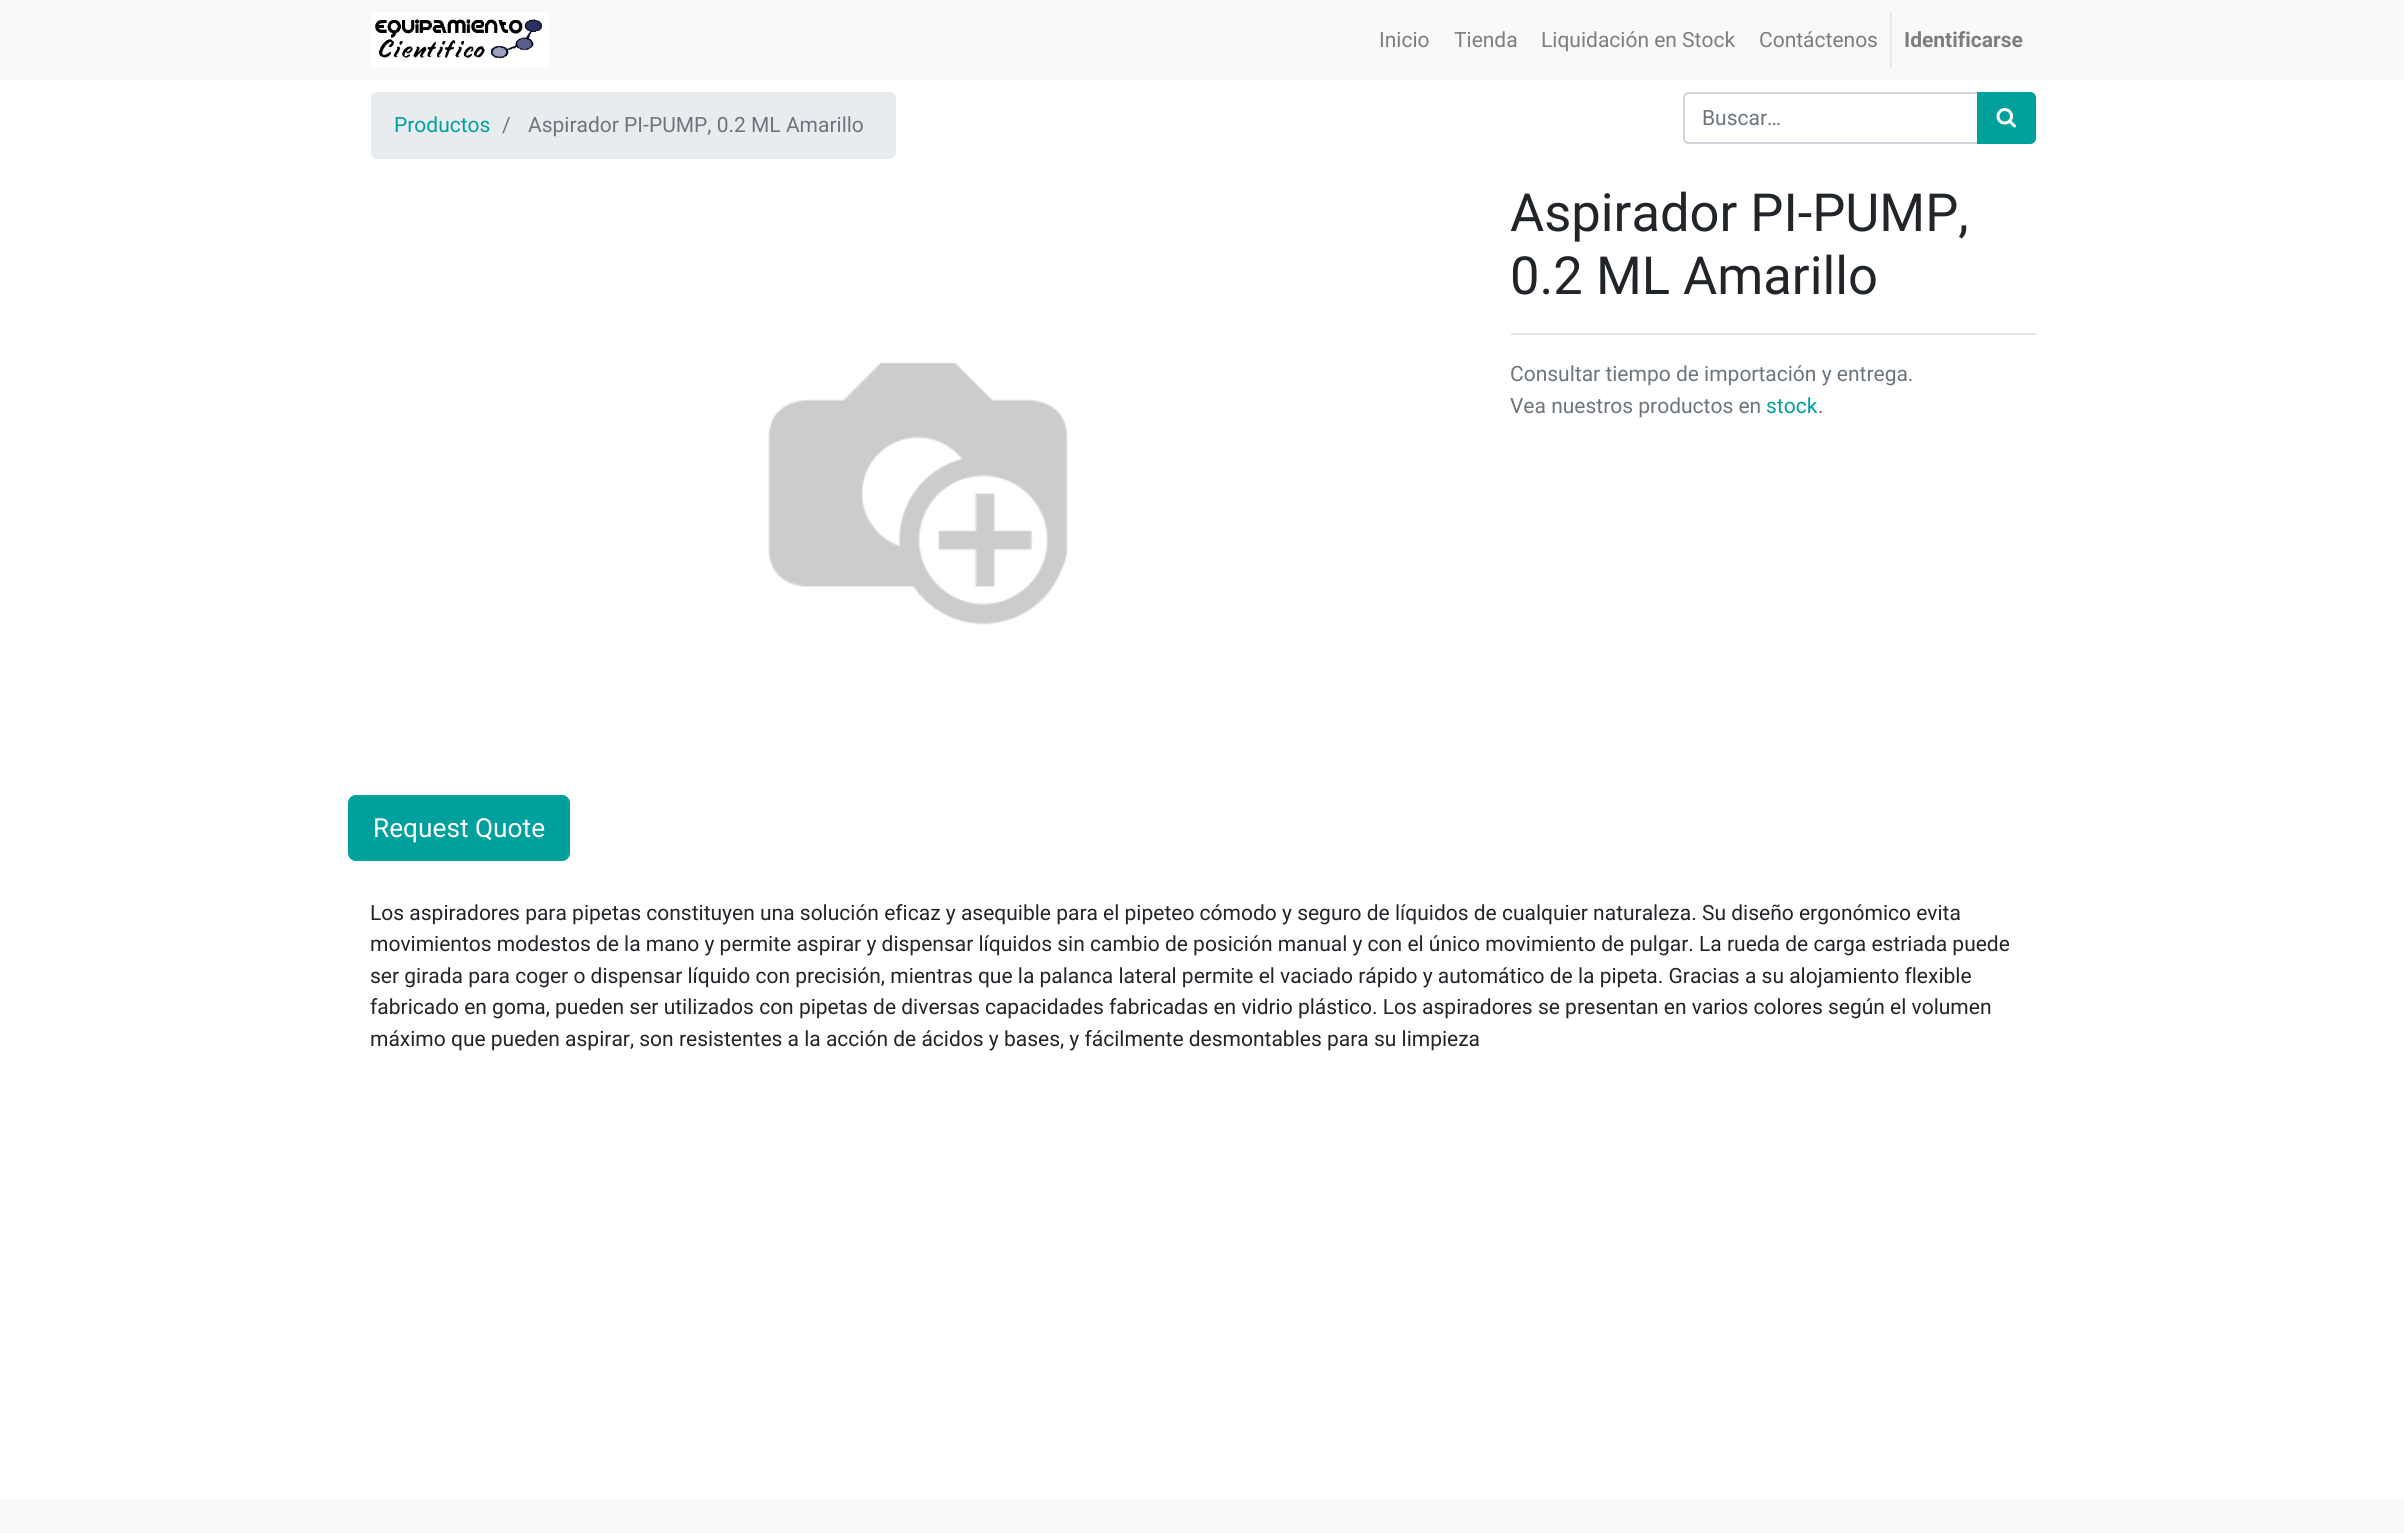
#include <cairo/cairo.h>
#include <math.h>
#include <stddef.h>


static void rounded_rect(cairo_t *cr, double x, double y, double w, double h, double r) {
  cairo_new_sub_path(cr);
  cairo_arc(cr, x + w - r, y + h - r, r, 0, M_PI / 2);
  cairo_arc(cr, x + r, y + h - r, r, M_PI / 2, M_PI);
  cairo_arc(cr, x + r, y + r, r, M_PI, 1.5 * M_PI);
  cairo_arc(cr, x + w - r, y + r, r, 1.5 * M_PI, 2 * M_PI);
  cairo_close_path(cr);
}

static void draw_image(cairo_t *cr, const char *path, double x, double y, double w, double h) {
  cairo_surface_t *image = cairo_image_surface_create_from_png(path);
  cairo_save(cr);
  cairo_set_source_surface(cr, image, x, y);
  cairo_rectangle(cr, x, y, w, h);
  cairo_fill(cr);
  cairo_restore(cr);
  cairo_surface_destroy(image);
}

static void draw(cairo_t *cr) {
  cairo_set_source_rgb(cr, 1, 1, 1);
  cairo_paint(cr);
  cairo_set_source_rgb(cr, 249 / 255.0, 249 / 255.0, 249 / 255.0);
  cairo_rectangle(cr, 0, 0, 2404, 80);
  cairo_fill(cr);
  draw_image(cr, "images/1.png", 371, 12, 178, 55);
  cairo_set_source_rgb(cr, 233 / 255.0, 236 / 255.0, 239 / 255.0);
  cairo_rectangle(cr, 1890, 12, 2, 56);
  cairo_fill(cr);
  rounded_rect(cr, 371, 92, 525, 67, 6);
  cairo_fill(cr);
  cairo_new_path(cr);
  cairo_move_to(cr, 1689, 93);
  cairo_line_to(cr, 1978, 93);
  cairo_line_to(cr, 1978, 143);
  cairo_line_to(cr, 1689, 143);
  cairo_curve_to(cr, 1686, 143, 1684, 141, 1684, 138);
  cairo_line_to(cr, 1684, 98);
  cairo_curve_to(cr, 1684, 95, 1686, 93, 1689, 93);
  cairo_close_path(cr);
  cairo_set_source_rgb(cr, 206 / 255.0, 212 / 255.0, 218 / 255.0);
  cairo_stroke(cr);
  cairo_set_source_rgb(cr, 0, 160 / 255.0, 157 / 255.0);
  cairo_new_path(cr);
  cairo_move_to(cr, 1978, 93);
  cairo_line_to(cr, 2030, 93);
  cairo_curve_to(cr, 2033, 93, 2035, 95, 2035, 98);
  cairo_line_to(cr, 2035, 138);
  cairo_curve_to(cr, 2035, 141, 2033, 143, 2030, 143);
  cairo_line_to(cr, 1978, 143);
  cairo_close_path(cr);
  cairo_fill_preserve(cr);
  cairo_stroke(cr);
  draw_image(cr, "images/2.png", 1996, 108, 20, 20);
  cairo_set_source_rgb(cr, 230 / 255.0, 230 / 255.0, 230 / 255.0);
  cairo_rectangle(cr, 1511, 333, 525, 2);
  cairo_fill(cr);
  draw_image(cr, "images/3.png", 768, 362, 300, 263);
  cairo_set_source_rgb(cr, 0, 160 / 255.0, 157 / 255.0);
  rounded_rect(cr, 349, 796, 220, 64, 7);
  cairo_fill_preserve(cr);
  cairo_stroke(cr);
  cairo_set_source_rgb(cr, 249 / 255.0, 249 / 255.0, 249 / 255.0);
  cairo_rectangle(cr, 0, 1499, 2404, 34);
  cairo_fill(cr);
  cairo_select_font_face(cr, "Roboto", CAIRO_FONT_SLANT_NORMAL, CAIRO_FONT_WEIGHT_NORMAL);
  cairo_set_font_size(cr, 21);
  cairo_set_source_rgb(cr, 125 / 255.0, 125 / 255.0, 125 / 255.0);
  cairo_move_to(cr, 1379, 47);
  cairo_show_text(cr, "Inicio");
  cairo_move_to(cr, 1454, 47);
  cairo_show_text(cr, "Tienda");
  cairo_move_to(cr, 1541, 47);
  cairo_show_text(cr, "Liquidación en Stock");
  cairo_move_to(cr, 1759, 47);
  cairo_show_text(cr, "Contáctenos");
  cairo_select_font_face(cr, "Roboto", CAIRO_FONT_SLANT_NORMAL, CAIRO_FONT_WEIGHT_BOLD);
  cairo_move_to(cr, 1904, 47);
  cairo_show_text(cr, "Identificarse");
  cairo_select_font_face(cr, "Roboto", CAIRO_FONT_SLANT_NORMAL, CAIRO_FONT_WEIGHT_NORMAL);
  cairo_set_source_rgb(cr, 0, 160 / 255.0, 157 / 255.0);
  cairo_move_to(cr, 394, 132);
  cairo_show_text(cr, "Productos");
  cairo_set_source_rgb(cr, 108 / 255.0, 117 / 255.0, 125 / 255.0);
  cairo_move_to(cr, 502, 132);
  cairo_show_text(cr, "/");
  cairo_move_to(cr, 528, 132);
  cairo_show_text(cr, "Aspirador PI-PUMP, 0.2 ML Amarillo");
  cairo_move_to(cr, 1702, 125);
  cairo_show_text(cr, "Buscar…");
  cairo_set_font_size(cr, 52.5);
  cairo_set_source_rgb(cr, 33 / 255.0, 37 / 255.0, 41 / 255.0);
  cairo_move_to(cr, 1510, 231);
  cairo_show_text(cr, "Aspirador PI-PUMP,");
  cairo_move_to(cr, 1510, 294);
  cairo_show_text(cr, "0.2 ML Amarillo");
  cairo_set_font_size(cr, 21);
  cairo_set_source_rgb(cr, 108 / 255.0, 117 / 255.0, 125 / 255.0);
  cairo_move_to(cr, 1510, 381);
  cairo_show_text(cr, "Consultar tiempo de importación y entrega.");
  cairo_move_to(cr, 1510, 413);
  cairo_show_text(cr, "Vea nuestros productos en");
  cairo_set_source_rgb(cr, 0, 160 / 255.0, 157 / 255.0);
  cairo_move_to(cr, 1766, 413);
  cairo_show_text(cr, "stock");
  cairo_set_source_rgb(cr, 108 / 255.0, 117 / 255.0, 125 / 255.0);
  cairo_move_to(cr, 1818, 413);
  cairo_show_text(cr, ".");
  cairo_set_font_size(cr, 26.25);
  cairo_set_source_rgb(cr, 1, 1, 1);
  cairo_move_to(cr, 373, 837);
  cairo_show_text(cr, "Request Quote");
  cairo_set_font_size(cr, 21);
  cairo_set_source_rgb(cr, 33 / 255.0, 37 / 255.0, 41 / 255.0);
  cairo_move_to(cr, 370, 920);
  cairo_show_text(cr, "Los aspiradores para pipetas constituyen una solución eficaz y asequible para el pipeteo cómodo y seguro de líquidos de cualquier naturaleza. Su diseño ergonómico evita");
  cairo_move_to(cr, 370, 951);
  cairo_show_text(cr, "movimientos modestos de la mano y permite aspirar y dispensar líquidos sin cambio de posición manual y con el único movimiento de pulgar. La rueda de carga estriada puede");
  cairo_move_to(cr, 370, 983);
  cairo_show_text(cr, "ser girada para coger o dispensar líquido con precisión, mientras que la palanca lateral permite el vaciado rápido y automático de la pipeta. Gracias a su alojamiento flexible");
  cairo_move_to(cr, 370, 1014);
  cairo_show_text(cr, "fabricado en goma, pueden ser utilizados con pipetas de diversas capacidades fabricadas en vidrio plástico. Los aspiradores se presentan en varios colores según el volumen");
  cairo_move_to(cr, 370, 1046);
  cairo_show_text(cr, "máximo que pueden aspirar, son resistentes a la acción de ácidos y bases, y fácilmente desmontables para su limpieza");
}

int main(void) {
  cairo_surface_t *surface = cairo_image_surface_create(CAIRO_FORMAT_RGB24, 2404, 1533);
  cairo_t *cr = cairo_create(surface);
  cairo_font_options_t *options = cairo_font_options_create();
  cairo_font_options_set_hint_metrics(options, CAIRO_HINT_METRICS_OFF);
  cairo_font_options_set_hint_style(options, CAIRO_HINT_STYLE_NONE);
  cairo_set_font_options(cr, options);
  cairo_set_miter_limit(cr, 4);
  draw(cr);
  cairo_surface_write_to_png(surface, "out.png");
  cairo_font_options_destroy(options);
  cairo_destroy(cr);
  cairo_surface_destroy(surface);
  return 0;
}
